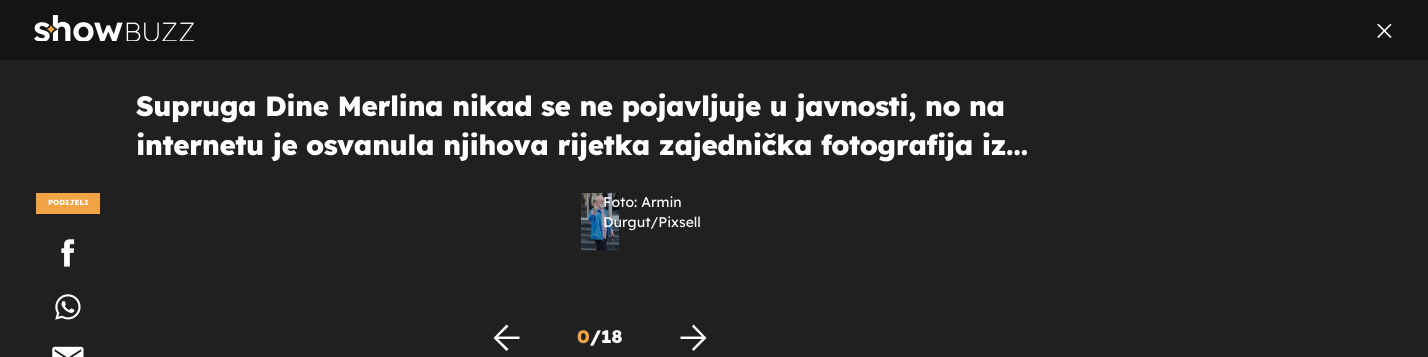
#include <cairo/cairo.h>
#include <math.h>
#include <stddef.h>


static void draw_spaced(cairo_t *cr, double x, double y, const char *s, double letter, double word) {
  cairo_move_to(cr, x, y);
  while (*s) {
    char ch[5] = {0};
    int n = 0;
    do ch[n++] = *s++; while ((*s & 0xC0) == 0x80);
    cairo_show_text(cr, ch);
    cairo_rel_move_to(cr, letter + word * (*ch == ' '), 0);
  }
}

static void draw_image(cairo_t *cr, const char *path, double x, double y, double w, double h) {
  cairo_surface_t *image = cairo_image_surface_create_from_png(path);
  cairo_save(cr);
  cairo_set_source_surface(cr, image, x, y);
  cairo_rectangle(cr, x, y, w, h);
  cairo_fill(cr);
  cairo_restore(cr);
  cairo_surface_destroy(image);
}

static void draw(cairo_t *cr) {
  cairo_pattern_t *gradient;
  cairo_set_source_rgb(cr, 32 / 255.0, 32 / 255.0, 32 / 255.0);
  cairo_paint(cr);
  cairo_set_source_rgb(cr, 20 / 255.0, 20 / 255.0, 20 / 255.0);
  cairo_rectangle(cr, 0, 0, 1428, 60);
  cairo_fill(cr);
  draw_image(cr, "images/1.png", 34, 15, 160, 26);
  draw_image(cr, "images/2.png", 1377, 23, 15, 15);
  cairo_set_source_rgb(cr, 242 / 255.0, 164 / 255.0, 68 / 255.0);
  cairo_rectangle(cr, 36, 193, 64, 21);
  cairo_fill(cr);
  draw_image(cr, "images/3.png", 61, 239, 14, 28);
  draw_image(cr, "images/4.png", 55, 294, 26, 26);
  draw_image(cr, "images/5.png", 52, 346, 32, 11);
  draw_image(cr, "images/6.png", 581, 193, 38, 58);
  gradient = cairo_pattern_create_linear(600, 250, 600, 72);
  cairo_pattern_add_color_stop_rgba(gradient, 0, 20 / 255.0, 20 / 255.0, 20 / 255.0, 0.4);
  cairo_pattern_add_color_stop_rgba(gradient, 1, 20 / 255.0, 20 / 255.0, 20 / 255.0, 0);
  cairo_set_source(cr, gradient);
  cairo_pattern_destroy(gradient);
  cairo_rectangle(cr, 581, 193, 38, 57);
  cairo_fill(cr);
  cairo_set_source_rgb(cr, 1, 1, 1);
  cairo_new_path(cr);
  cairo_move_to(cr, 506.5, 351);
  cairo_line_to(cr, 508.5, 349);
  cairo_line_to(cr, 498, 339);
  cairo_line_to(cr, 519.5, 339);
  cairo_line_to(cr, 519.5, 336.5);
  cairo_line_to(cr, 498, 336.5);
  cairo_line_to(cr, 508.5, 326.5);
  cairo_line_to(cr, 506.5, 324.5);
  cairo_line_to(cr, 493.5, 338);
  cairo_close_path(cr);
  cairo_fill(cr);
  cairo_new_path(cr);
  cairo_move_to(cr, 693.5, 351);
  cairo_line_to(cr, 692, 349);
  cairo_line_to(cr, 702, 339);
  cairo_line_to(cr, 680.5, 339);
  cairo_line_to(cr, 680.5, 336.5);
  cairo_line_to(cr, 702, 336.5);
  cairo_line_to(cr, 692, 326.5);
  cairo_line_to(cr, 693.5, 324.5);
  cairo_line_to(cr, 706.5, 338);
  cairo_close_path(cr);
  cairo_fill(cr);
  cairo_select_font_face(cr, "Lexend ExtraBold", CAIRO_FONT_SLANT_NORMAL, CAIRO_FONT_WEIGHT_NORMAL);
  cairo_set_font_size(cr, 27.85);
  draw_spaced(cr, 136, 116, "Supruga Dine Merlina nikad se ne pojavljuje u javnosti, no na", -0.55, 0);
  draw_spaced(cr, 136, 155, "internetu je osvanula njihova rijetka zajednička fotografija iz…", -0.55, 0);
  cairo_set_font_size(cr, 7.5);
  cairo_move_to(cr, 48, 205);
  cairo_show_text(cr, "PODIJELI");
  cairo_select_font_face(cr, "Lexend", CAIRO_FONT_SLANT_NORMAL, CAIRO_FONT_WEIGHT_NORMAL);
  cairo_set_font_size(cr, 14);
  cairo_move_to(cr, 603, 207);
  cairo_show_text(cr, "Foto: Armin");
  cairo_move_to(cr, 603, 227);
  cairo_show_text(cr, "Durgut/Pixsell");
  cairo_select_font_face(cr, "Lexend ExtraBold", CAIRO_FONT_SLANT_NORMAL, CAIRO_FONT_WEIGHT_NORMAL);
  cairo_set_font_size(cr, 18);
  cairo_set_source_rgb(cr, 242 / 255.0, 164 / 255.0, 68 / 255.0);
  cairo_move_to(cr, 577, 343);
  cairo_show_text(cr, "0");
  cairo_set_source_rgb(cr, 1, 1, 1);
  cairo_move_to(cr, 590, 343);
  cairo_show_text(cr, "/18");
}

int main(void) {
  cairo_surface_t *surface = cairo_image_surface_create(CAIRO_FORMAT_RGB24, 1428, 357);
  cairo_t *cr = cairo_create(surface);
  cairo_font_options_t *options = cairo_font_options_create();
  cairo_font_options_set_hint_metrics(options, CAIRO_HINT_METRICS_OFF);
  cairo_font_options_set_hint_style(options, CAIRO_HINT_STYLE_NONE);
  cairo_set_font_options(cr, options);
  cairo_set_miter_limit(cr, 4);
  draw(cr);
  cairo_surface_write_to_png(surface, "out.png");
  cairo_font_options_destroy(options);
  cairo_destroy(cr);
  cairo_surface_destroy(surface);
  return 0;
}
